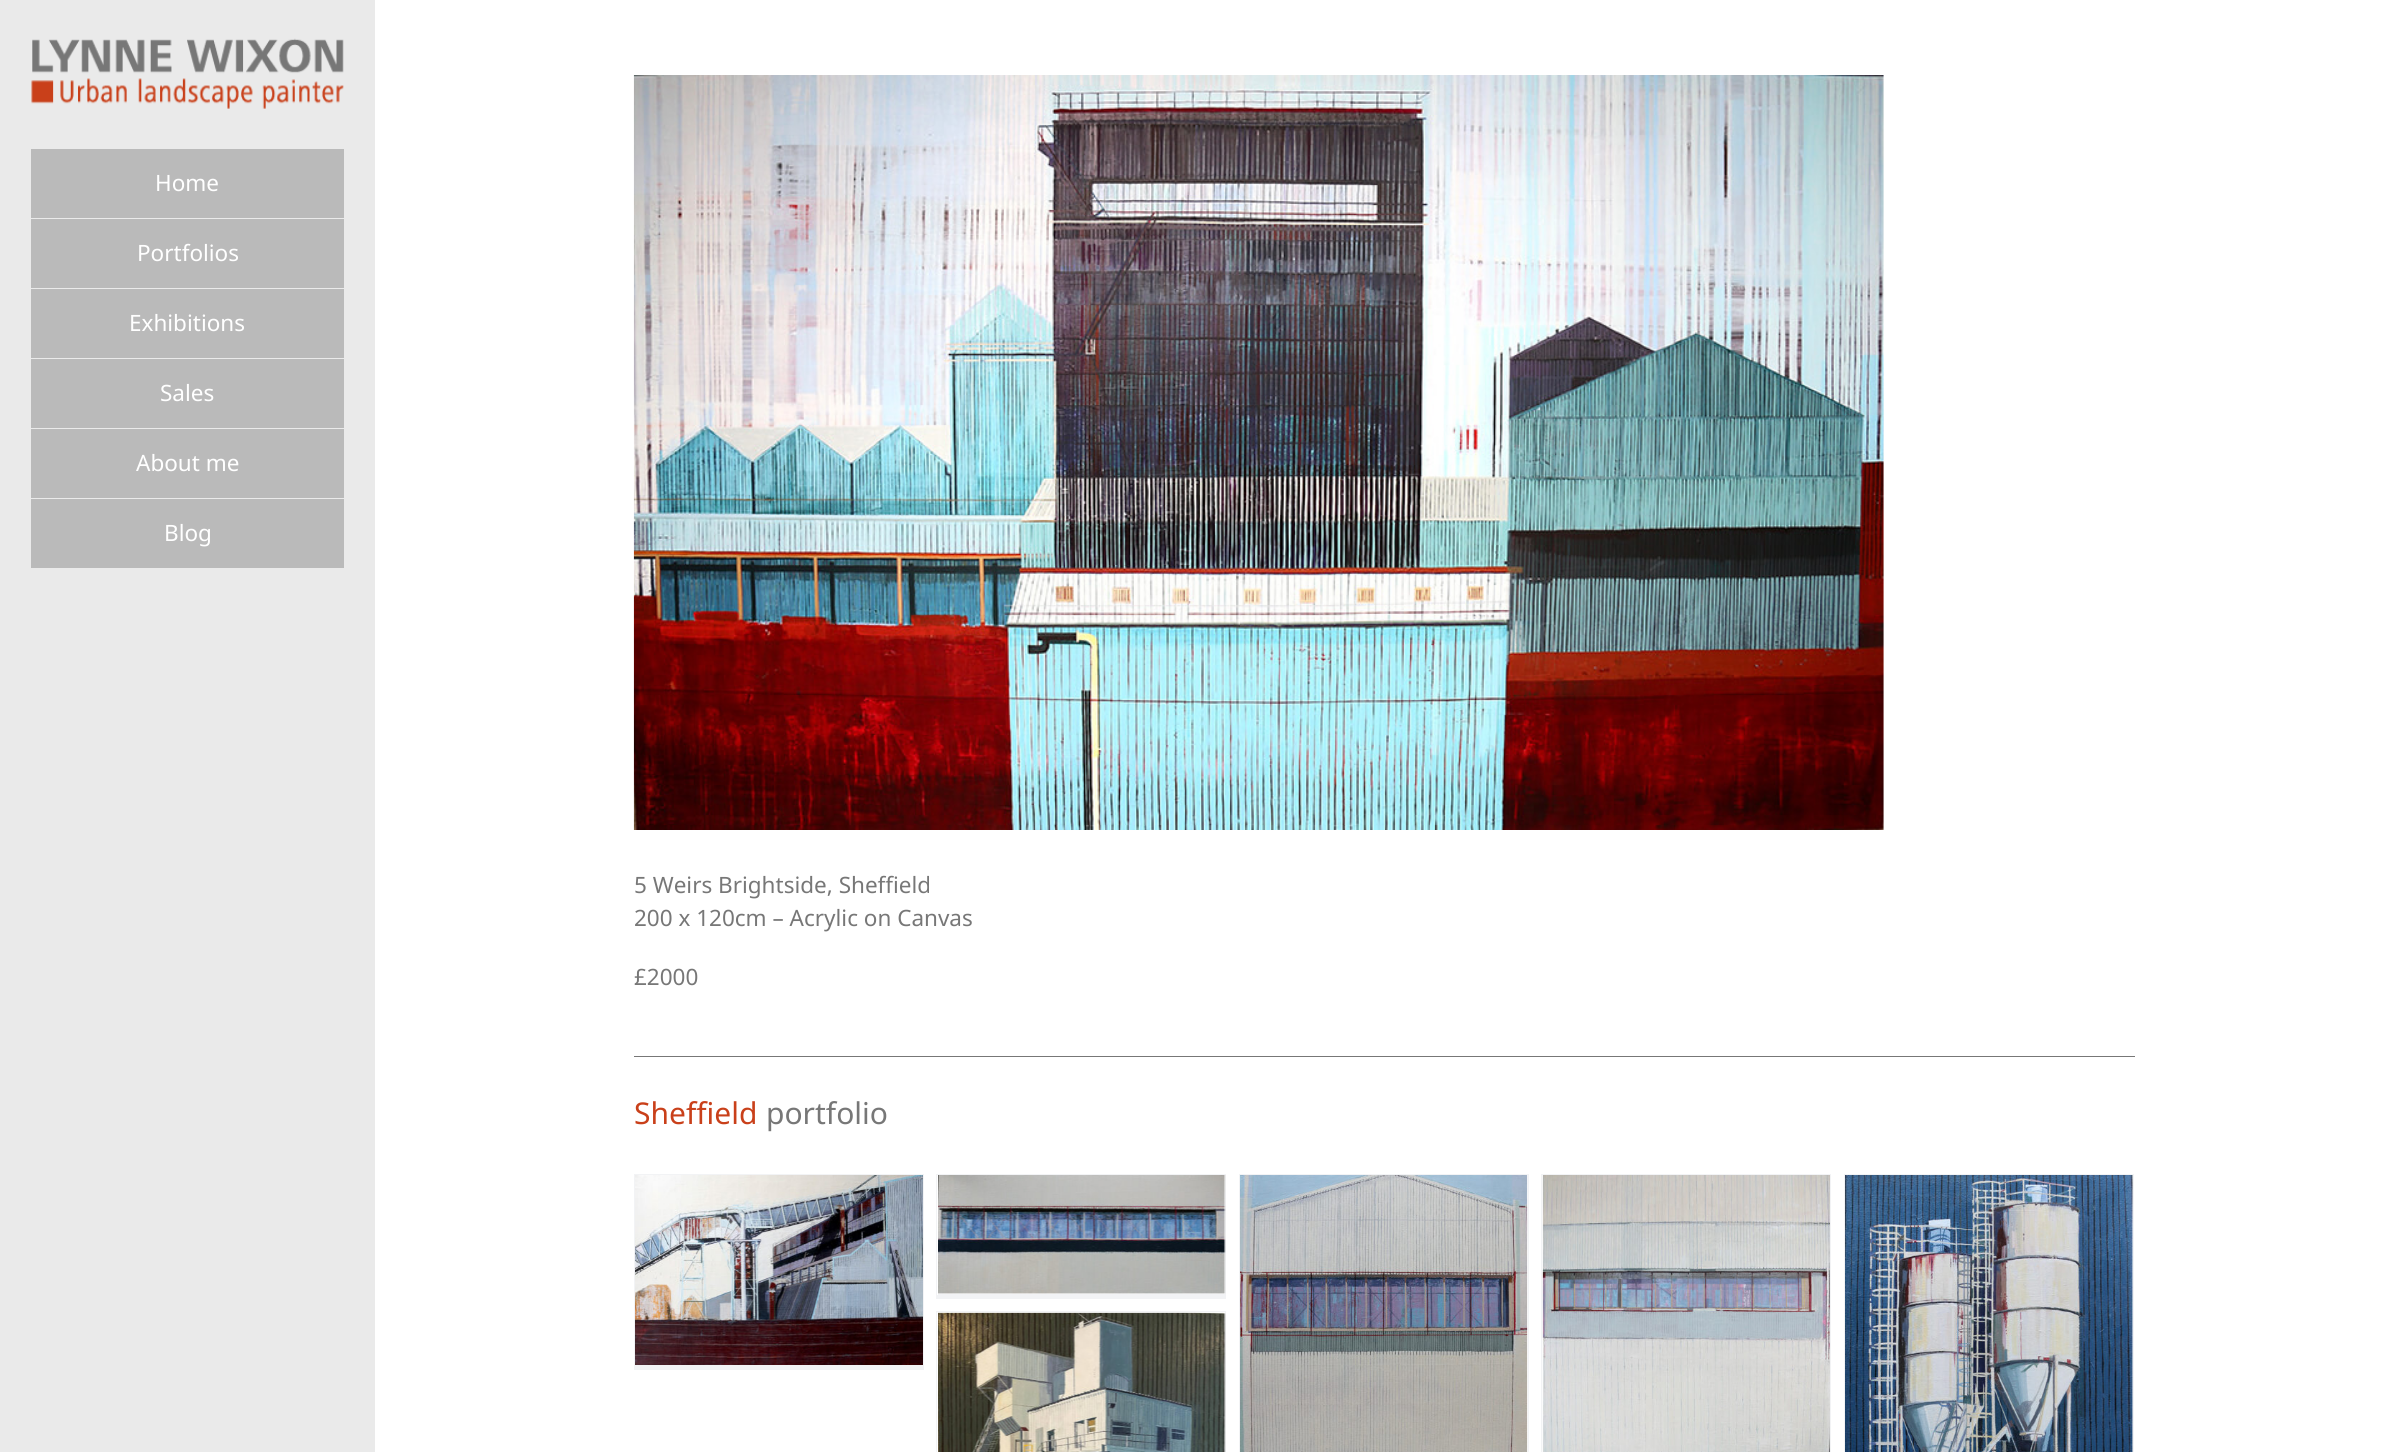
#include <cairo/cairo.h>
#include <math.h>
#include <stddef.h>


static void draw_image(cairo_t *cr, const char *path, double x, double y, double w, double h) {
  cairo_surface_t *image = cairo_image_surface_create_from_png(path);
  cairo_save(cr);
  cairo_set_source_surface(cr, image, x, y);
  cairo_rectangle(cr, x, y, w, h);
  cairo_fill(cr);
  cairo_restore(cr);
  cairo_surface_destroy(image);
}

static void draw(cairo_t *cr) {
  cairo_set_source_rgb(cr, 234 / 255.0, 234 / 255.0, 234 / 255.0);
  cairo_paint(cr);
  cairo_set_source_rgb(cr, 1, 1, 1);
  cairo_rectangle(cr, 375, 0, 2018, 1452);
  cairo_fill(cr);
  draw_image(cr, "images/1.png", 31, 38, 313, 71);
  cairo_set_source_rgb(cr, 186 / 255.0, 186 / 255.0, 186 / 255.0);
  cairo_rectangle(cr, 31, 149, 313, 69);
  cairo_fill(cr);
  cairo_rectangle(cr, 31, 219, 313, 69);
  cairo_fill(cr);
  cairo_rectangle(cr, 31, 289, 313, 69);
  cairo_fill(cr);
  cairo_rectangle(cr, 31, 359, 313, 69);
  cairo_fill(cr);
  cairo_rectangle(cr, 31, 429, 313, 69);
  cairo_fill(cr);
  cairo_rectangle(cr, 31, 499, 313, 69);
  cairo_fill(cr);
  draw_image(cr, "images/2.png", 633, 75, 1251, 755);
  cairo_set_source_rgb(cr, 119 / 255.0, 119 / 255.0, 119 / 255.0);
  cairo_rectangle(cr, 634, 1056, 1501, 1);
  cairo_fill(cr);
  cairo_set_source_rgb(cr, 242 / 255.0, 243 / 255.0, 245 / 255.0);
  cairo_rectangle(cr, 634, 1174, 290, 1);
  cairo_fill(cr);
  cairo_rectangle(cr, 923, 1174, 1, 196);
  cairo_fill(cr);
  cairo_rectangle(cr, 634, 1366, 290, 4);
  cairo_fill(cr);
  cairo_rectangle(cr, 634, 1174, 1, 196);
  cairo_fill(cr);
  cairo_rectangle(cr, 635, 1365, 288, 1);
  cairo_fill(cr);
  draw_image(cr, "images/3.png", 635, 1175, 288, 190);
  cairo_rectangle(cr, 936, 1174, 290, 1);
  cairo_fill(cr);
  cairo_rectangle(cr, 1225, 1174, 1, 125);
  cairo_fill(cr);
  cairo_rectangle(cr, 936, 1295, 290, 4);
  cairo_fill(cr);
  cairo_rectangle(cr, 936, 1174, 1, 125);
  cairo_fill(cr);
  cairo_rectangle(cr, 938, 1294, 287, 1);
  cairo_fill(cr);
  draw_image(cr, "images/4.png", 938, 1175, 288, 119);
  cairo_rectangle(cr, 1239, 1174, 290, 1);
  cairo_fill(cr);
  cairo_rectangle(cr, 1528, 1174, 1, 278);
  cairo_fill(cr);
  cairo_rectangle(cr, 1239, 1174, 1, 278);
  cairo_fill(cr);
  draw_image(cr, "images/5.png", 1240, 1175, 288, 277);
  cairo_rectangle(cr, 1541, 1174, 290, 1);
  cairo_fill(cr);
  cairo_rectangle(cr, 1830, 1174, 1, 278);
  cairo_fill(cr);
  cairo_rectangle(cr, 1541, 1174, 1, 278);
  cairo_fill(cr);
  draw_image(cr, "images/6.png", 1542, 1175, 288, 277);
  cairo_rectangle(cr, 1844, 1174, 290, 1);
  cairo_fill(cr);
  cairo_rectangle(cr, 2133, 1174, 1, 278);
  cairo_fill(cr);
  cairo_rectangle(cr, 1844, 1174, 1, 278);
  cairo_fill(cr);
  draw_image(cr, "images/7.png", 1845, 1175, 288, 277);
  cairo_rectangle(cr, 936, 1311, 290, 1);
  cairo_fill(cr);
  cairo_rectangle(cr, 1225, 1311, 1, 141);
  cairo_fill(cr);
  cairo_rectangle(cr, 936, 1311, 1, 141);
  cairo_fill(cr);
  draw_image(cr, "images/8.png", 938, 1312, 288, 140);
  cairo_select_font_face(cr, "Noto Sans", CAIRO_FONT_SLANT_NORMAL, CAIRO_FONT_WEIGHT_NORMAL);
  cairo_set_font_size(cr, 22.5);
  cairo_set_source_rgb(cr, 1, 1, 1);
  cairo_move_to(cr, 155, 191);
  cairo_show_text(cr, "Home");
  cairo_move_to(cr, 137, 261);
  cairo_show_text(cr, "Portfolios");
  cairo_move_to(cr, 129, 331);
  cairo_show_text(cr, "Exhibitions");
  cairo_move_to(cr, 160, 401);
  cairo_show_text(cr, "Sales");
  cairo_move_to(cr, 136, 471);
  cairo_show_text(cr, "About me");
  cairo_move_to(cr, 164, 541);
  cairo_show_text(cr, "Blog");
  cairo_set_source_rgb(cr, 119 / 255.0, 119 / 255.0, 119 / 255.0);
  cairo_move_to(cr, 634, 893);
  cairo_show_text(cr, "5 Weirs Brightside, Sheffield");
  cairo_move_to(cr, 634, 926);
  cairo_show_text(cr, "200 x 120cm – Acrylic on Canvas");
  cairo_move_to(cr, 634, 985);
  cairo_show_text(cr, "£2000");
  cairo_set_font_size(cr, 30);
  cairo_set_source_rgb(cr, 201 / 255.0, 64 / 255.0, 26 / 255.0);
  cairo_move_to(cr, 634, 1124);
  cairo_show_text(cr, "Sheffield");
  cairo_set_source_rgb(cr, 119 / 255.0, 119 / 255.0, 119 / 255.0);
  cairo_move_to(cr, 766, 1124);
  cairo_show_text(cr, "portfolio");
}

int main(void) {
  cairo_surface_t *surface = cairo_image_surface_create(CAIRO_FORMAT_RGB24, 2393, 1452);
  cairo_t *cr = cairo_create(surface);
  cairo_font_options_t *options = cairo_font_options_create();
  cairo_font_options_set_hint_metrics(options, CAIRO_HINT_METRICS_OFF);
  cairo_font_options_set_hint_style(options, CAIRO_HINT_STYLE_NONE);
  cairo_set_font_options(cr, options);
  cairo_set_miter_limit(cr, 4);
  draw(cr);
  cairo_surface_write_to_png(surface, "out.png");
  cairo_font_options_destroy(options);
  cairo_destroy(cr);
  cairo_surface_destroy(surface);
  return 0;
}
